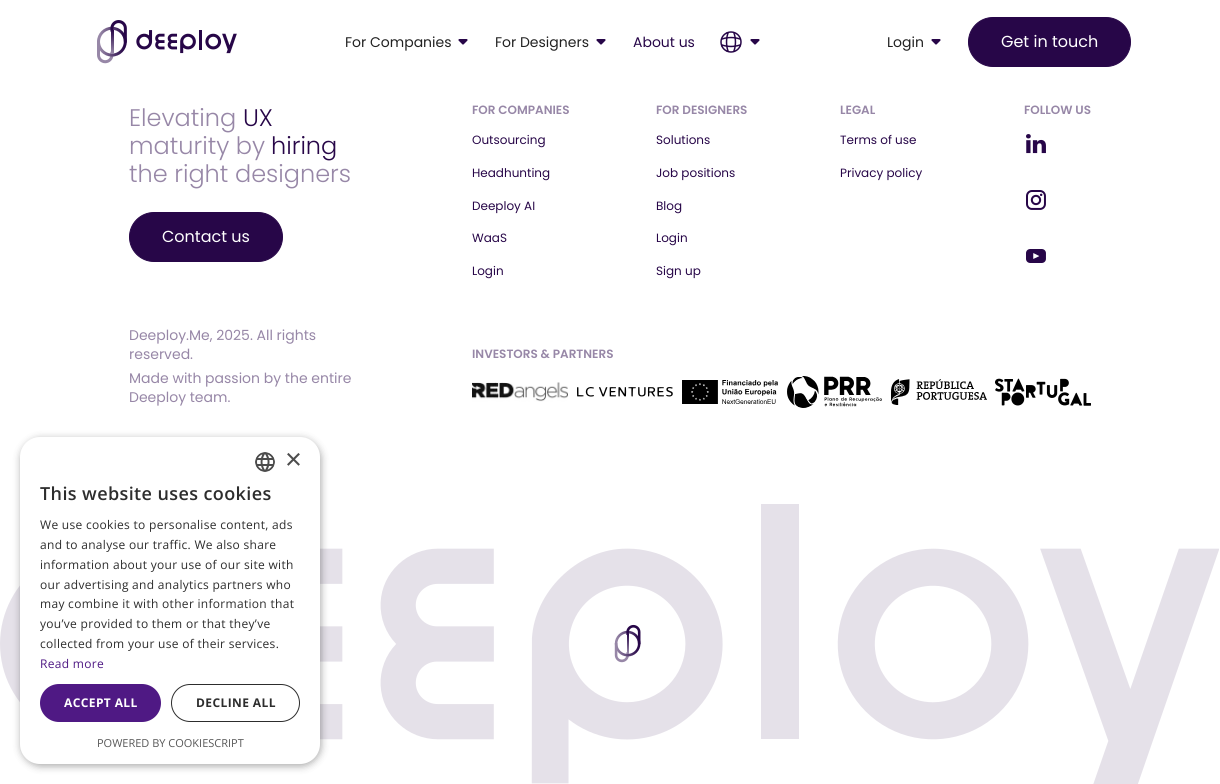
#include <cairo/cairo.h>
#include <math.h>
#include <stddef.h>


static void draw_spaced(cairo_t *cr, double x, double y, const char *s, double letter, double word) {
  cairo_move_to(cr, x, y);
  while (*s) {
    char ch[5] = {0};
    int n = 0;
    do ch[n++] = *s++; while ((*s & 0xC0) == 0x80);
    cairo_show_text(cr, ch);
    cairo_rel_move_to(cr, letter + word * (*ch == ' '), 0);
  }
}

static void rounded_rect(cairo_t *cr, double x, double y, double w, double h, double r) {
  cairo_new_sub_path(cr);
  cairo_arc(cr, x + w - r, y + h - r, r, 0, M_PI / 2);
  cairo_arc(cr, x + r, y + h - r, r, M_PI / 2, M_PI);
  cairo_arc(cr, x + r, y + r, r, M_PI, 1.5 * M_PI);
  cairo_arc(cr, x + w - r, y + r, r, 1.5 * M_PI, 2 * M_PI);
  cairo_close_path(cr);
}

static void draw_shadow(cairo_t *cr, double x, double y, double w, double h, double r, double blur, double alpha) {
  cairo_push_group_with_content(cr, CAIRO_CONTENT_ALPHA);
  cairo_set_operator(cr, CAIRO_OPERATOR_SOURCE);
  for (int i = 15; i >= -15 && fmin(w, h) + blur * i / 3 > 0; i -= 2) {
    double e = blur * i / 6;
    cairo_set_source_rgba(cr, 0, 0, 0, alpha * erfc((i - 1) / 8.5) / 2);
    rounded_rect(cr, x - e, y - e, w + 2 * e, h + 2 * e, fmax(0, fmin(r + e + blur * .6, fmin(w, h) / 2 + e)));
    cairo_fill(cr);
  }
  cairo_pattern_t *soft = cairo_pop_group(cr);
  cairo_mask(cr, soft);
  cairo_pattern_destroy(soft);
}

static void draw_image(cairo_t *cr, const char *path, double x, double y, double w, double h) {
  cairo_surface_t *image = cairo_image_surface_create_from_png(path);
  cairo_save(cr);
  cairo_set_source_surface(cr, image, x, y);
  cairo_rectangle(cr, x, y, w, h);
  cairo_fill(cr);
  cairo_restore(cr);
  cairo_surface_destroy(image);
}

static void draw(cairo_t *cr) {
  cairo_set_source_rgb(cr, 1, 1, 1);
  cairo_paint(cr);
  draw_image(cr, "images/1.png", 97, 20, 140, 44);
  draw_image(cr, "images/2.png", 458, 39, 10, 6);
  draw_image(cr, "images/2.png", 596, 39, 10, 6);
  draw_image(cr, "images/3.png", 720, 31, 22, 22);
  draw_image(cr, "images/2.png", 750, 39, 10, 6);
  draw_image(cr, "images/2.png", 931, 39, 10, 6);
  cairo_set_source_rgb(cr, 39 / 255.0, 6 / 255.0, 72 / 255.0);
  rounded_rect(cr, 968.5, 17.5, 162, 49, 24.5);
  cairo_fill_preserve(cr);
  cairo_set_line_width(cr, 1);
  cairo_stroke(cr);
  rounded_rect(cr, 129.5, 212.5, 153, 49, 24.5);
  cairo_fill_preserve(cr);
  cairo_stroke(cr);
  draw_image(cr, "images/4.png", 1026, 134, 20, 20);
  draw_image(cr, "images/5.png", 1026, 190, 20, 20);
  draw_image(cr, "images/6.png", 1026, 249, 20, 14);
  draw_image(cr, "images/7.png", 472, 382, 96, 20);
  draw_image(cr, "images/8.png", 577, 387, 96, 10);
  draw_image(cr, "images/9.png", 682, 380, 96, 24);
  draw_image(cr, "images/10.png", 787, 376, 95, 32);
  draw_image(cr, "images/11.png", 891, 379, 96, 26);
  draw_image(cr, "images/12.png", 995, 378, 96, 28);
  draw_image(cr, "images/13.png", 0, 504, 1219, 280);
  cairo_set_source_rgb(cr, 0, 0, 0);
  draw_shadow(cr, 21, 439, 300, 327, 20, 4, 0.35);
  cairo_set_source_rgb(cr, 1, 1, 1);
  rounded_rect(cr, 20, 437, 300, 327, 20);
  cairo_fill(cr);
  draw_image(cr, "images/14.png", 255, 452, 20, 20);
  cairo_set_source_rgb(cr, 79 / 255.0, 25 / 255.0, 132 / 255.0);
  rounded_rect(cr, 40, 684, 121, 38, 19);
  cairo_fill(cr);
  rounded_rect(cr, 171.5, 684.5, 128, 37, 18.5);
  cairo_set_source_rgb(cr, 45 / 255.0, 45 / 255.0, 45 / 255.0);
  cairo_stroke(cr);
  cairo_select_font_face(cr, "Poppins", CAIRO_FONT_SLANT_NORMAL, CAIRO_FONT_WEIGHT_NORMAL);
  cairo_set_font_size(cr, 14);
  cairo_set_source_rgb(cr, 34 / 255.0, 34 / 255.0, 34 / 255.0);
  cairo_move_to(cr, 345, 47);
  cairo_show_text(cr, "For Companies");
  cairo_move_to(cr, 495, 47);
  cairo_show_text(cr, "For Designers");
  cairo_set_source_rgb(cr, 39 / 255.0, 6 / 255.0, 72 / 255.0);
  cairo_move_to(cr, 633, 47);
  cairo_show_text(cr, "About us");
  cairo_set_source_rgb(cr, 34 / 255.0, 34 / 255.0, 34 / 255.0);
  cairo_move_to(cr, 887, 47);
  cairo_show_text(cr, "Login");
  cairo_set_font_size(cr, 16);
  cairo_set_source_rgb(cr, 1, 1, 1);
  cairo_move_to(cr, 1001, 47);
  cairo_show_text(cr, "Get in touch");
  cairo_select_font_face(cr, "Poppins Light", CAIRO_FONT_SLANT_NORMAL, CAIRO_FONT_WEIGHT_NORMAL);
  cairo_set_font_size(cr, 24);
  cairo_set_source_rgb(cr, 151 / 255.0, 135 / 255.0, 167 / 255.0);
  cairo_move_to(cr, 129, 126);
  cairo_show_text(cr, "Elevating");
  cairo_set_source_rgb(cr, 39 / 255.0, 6 / 255.0, 72 / 255.0);
  cairo_move_to(cr, 243, 126);
  cairo_show_text(cr, "UX");
  cairo_set_source_rgb(cr, 151 / 255.0, 135 / 255.0, 167 / 255.0);
  cairo_move_to(cr, 129, 154);
  cairo_show_text(cr, "maturity by");
  cairo_set_source_rgb(cr, 39 / 255.0, 6 / 255.0, 72 / 255.0);
  cairo_move_to(cr, 271, 154);
  cairo_show_text(cr, "hiring");
  cairo_set_source_rgb(cr, 151 / 255.0, 135 / 255.0, 167 / 255.0);
  cairo_move_to(cr, 129, 182);
  cairo_show_text(cr, "the right designers");
  cairo_select_font_face(cr, "Poppins", CAIRO_FONT_SLANT_NORMAL, CAIRO_FONT_WEIGHT_NORMAL);
  cairo_set_font_size(cr, 16);
  cairo_set_source_rgb(cr, 1, 1, 1);
  cairo_move_to(cr, 162, 242);
  cairo_show_text(cr, "Contact us");
  cairo_set_font_size(cr, 14);
  cairo_set_source_rgb(cr, 151 / 255.0, 135 / 255.0, 167 / 255.0);
  cairo_move_to(cr, 129, 340);
  cairo_show_text(cr, "Deeploy.Me, 2025. All rights");
  cairo_move_to(cr, 129, 359);
  cairo_show_text(cr, "reserved.");
  cairo_move_to(cr, 129, 383);
  cairo_show_text(cr, "Made with passion by the entire");
  cairo_move_to(cr, 129, 402);
  cairo_show_text(cr, "Deeploy team.");
  cairo_select_font_face(cr, "Poppins SemiBold", CAIRO_FONT_SLANT_NORMAL, CAIRO_FONT_WEIGHT_NORMAL);
  cairo_set_font_size(cr, 12);
  cairo_move_to(cr, 472, 114);
  cairo_show_text(cr, "FOR COMPANIES");
  cairo_select_font_face(cr, "Poppins", CAIRO_FONT_SLANT_NORMAL, CAIRO_FONT_WEIGHT_NORMAL);
  cairo_set_source_rgb(cr, 39 / 255.0, 6 / 255.0, 72 / 255.0);
  cairo_move_to(cr, 472, 144);
  cairo_show_text(cr, "Outsourcing");
  cairo_move_to(cr, 472, 177);
  cairo_show_text(cr, "Headhunting");
  cairo_move_to(cr, 472, 210);
  cairo_show_text(cr, "Deeploy AI");
  cairo_move_to(cr, 472, 242);
  cairo_show_text(cr, "WaaS");
  cairo_move_to(cr, 472, 275);
  cairo_show_text(cr, "Login");
  cairo_select_font_face(cr, "Poppins SemiBold", CAIRO_FONT_SLANT_NORMAL, CAIRO_FONT_WEIGHT_NORMAL);
  cairo_set_source_rgb(cr, 151 / 255.0, 135 / 255.0, 167 / 255.0);
  cairo_move_to(cr, 656, 114);
  cairo_show_text(cr, "FOR DESIGNERS");
  cairo_select_font_face(cr, "Poppins", CAIRO_FONT_SLANT_NORMAL, CAIRO_FONT_WEIGHT_NORMAL);
  cairo_set_source_rgb(cr, 39 / 255.0, 6 / 255.0, 72 / 255.0);
  cairo_move_to(cr, 656, 144);
  cairo_show_text(cr, "Solutions");
  cairo_move_to(cr, 656, 177);
  cairo_show_text(cr, "Job positions");
  cairo_move_to(cr, 656, 210);
  cairo_show_text(cr, "Blog");
  cairo_move_to(cr, 656, 242);
  cairo_show_text(cr, "Login");
  cairo_move_to(cr, 656, 275);
  cairo_show_text(cr, "Sign up");
  cairo_select_font_face(cr, "Poppins SemiBold", CAIRO_FONT_SLANT_NORMAL, CAIRO_FONT_WEIGHT_NORMAL);
  cairo_set_source_rgb(cr, 151 / 255.0, 135 / 255.0, 167 / 255.0);
  cairo_move_to(cr, 840, 114);
  cairo_show_text(cr, "LEGAL");
  cairo_select_font_face(cr, "Poppins", CAIRO_FONT_SLANT_NORMAL, CAIRO_FONT_WEIGHT_NORMAL);
  cairo_set_source_rgb(cr, 39 / 255.0, 6 / 255.0, 72 / 255.0);
  cairo_move_to(cr, 840, 144);
  cairo_show_text(cr, "Terms of use");
  cairo_move_to(cr, 840, 177);
  cairo_show_text(cr, "Privacy policy");
  cairo_select_font_face(cr, "Poppins SemiBold", CAIRO_FONT_SLANT_NORMAL, CAIRO_FONT_WEIGHT_NORMAL);
  cairo_set_source_rgb(cr, 151 / 255.0, 135 / 255.0, 167 / 255.0);
  cairo_move_to(cr, 1024, 114);
  cairo_show_text(cr, "FOLLOW US");
  cairo_move_to(cr, 472, 358);
  cairo_show_text(cr, "INVESTORS & PARTNERS");
  cairo_select_font_face(cr, "Liberation Sans", CAIRO_FONT_SLANT_NORMAL, CAIRO_FONT_WEIGHT_NORMAL);
  cairo_set_font_size(cr, 29);
  cairo_set_source_rgb(cr, 77 / 255.0, 77 / 255.0, 77 / 255.0);
  cairo_move_to(cr, 285, 469);
  cairo_show_text(cr, "×");
  cairo_select_font_face(cr, "Open Sans SemiBold", CAIRO_FONT_SLANT_NORMAL, CAIRO_FONT_WEIGHT_NORMAL);
  cairo_set_font_size(cr, 18);
  cairo_set_source_rgb(cr, 45 / 255.0, 45 / 255.0, 45 / 255.0);
  draw_spaced(cr, 40, 500, "This website uses cookies", 0.4, 0);
  cairo_select_font_face(cr, "Open Sans", CAIRO_FONT_SLANT_NORMAL, CAIRO_FONT_WEIGHT_NORMAL);
  cairo_set_font_size(cr, 12);
  draw_spaced(cr, 40, 529, "We use cookies to personalise content, ads", 0.3, 0);
  draw_spaced(cr, 40, 549, "and to analyse our traffic. We also share", 0.3, 0);
  draw_spaced(cr, 40, 569, "information about your use of our site with", 0.3, 0);
  draw_spaced(cr, 40, 589, "our advertising and analytics partners who", 0.3, 0);
  draw_spaced(cr, 40, 608, "may combine it with other information that", 0.3, 0);
  draw_spaced(cr, 40, 628, "you’ve provided to them or that they’ve", 0.3, 0);
  draw_spaced(cr, 40, 648, "collected from your use of their services.", 0.3, 0);
  cairo_set_source_rgb(cr, 79 / 255.0, 25 / 255.0, 132 / 255.0);
  draw_spaced(cr, 40, 668, "Read more", 0.3, 0);
  cairo_select_font_face(cr, "Open Sans", CAIRO_FONT_SLANT_NORMAL, CAIRO_FONT_WEIGHT_BOLD);
  cairo_set_source_rgb(cr, 1, 1, 1);
  draw_spaced(cr, 64, 707, "ACCEPT ALL", 0.4, 0);
  cairo_set_source_rgb(cr, 45 / 255.0, 45 / 255.0, 45 / 255.0);
  draw_spaced(cr, 196, 707, "DECLINE ALL", 0.4, 0);
  cairo_select_font_face(cr, "Open Sans", CAIRO_FONT_SLANT_NORMAL, CAIRO_FONT_WEIGHT_NORMAL);
  cairo_set_font_size(cr, 11);
  cairo_set_source_rgb(cr, 87 / 255.0, 87 / 255.0, 87 / 255.0);
  cairo_move_to(cr, 97, 747);
  cairo_show_text(cr, "POWERED BY COOKIESCRIPT");
}

int main(void) {
  cairo_surface_t *surface = cairo_image_surface_create(CAIRO_FORMAT_RGB24, 1220, 784);
  cairo_t *cr = cairo_create(surface);
  cairo_font_options_t *options = cairo_font_options_create();
  cairo_font_options_set_hint_metrics(options, CAIRO_HINT_METRICS_OFF);
  cairo_font_options_set_hint_style(options, CAIRO_HINT_STYLE_NONE);
  cairo_set_font_options(cr, options);
  cairo_set_miter_limit(cr, 4);
  draw(cr);
  cairo_surface_write_to_png(surface, "out.png");
  cairo_font_options_destroy(options);
  cairo_destroy(cr);
  cairo_surface_destroy(surface);
  return 0;
}
